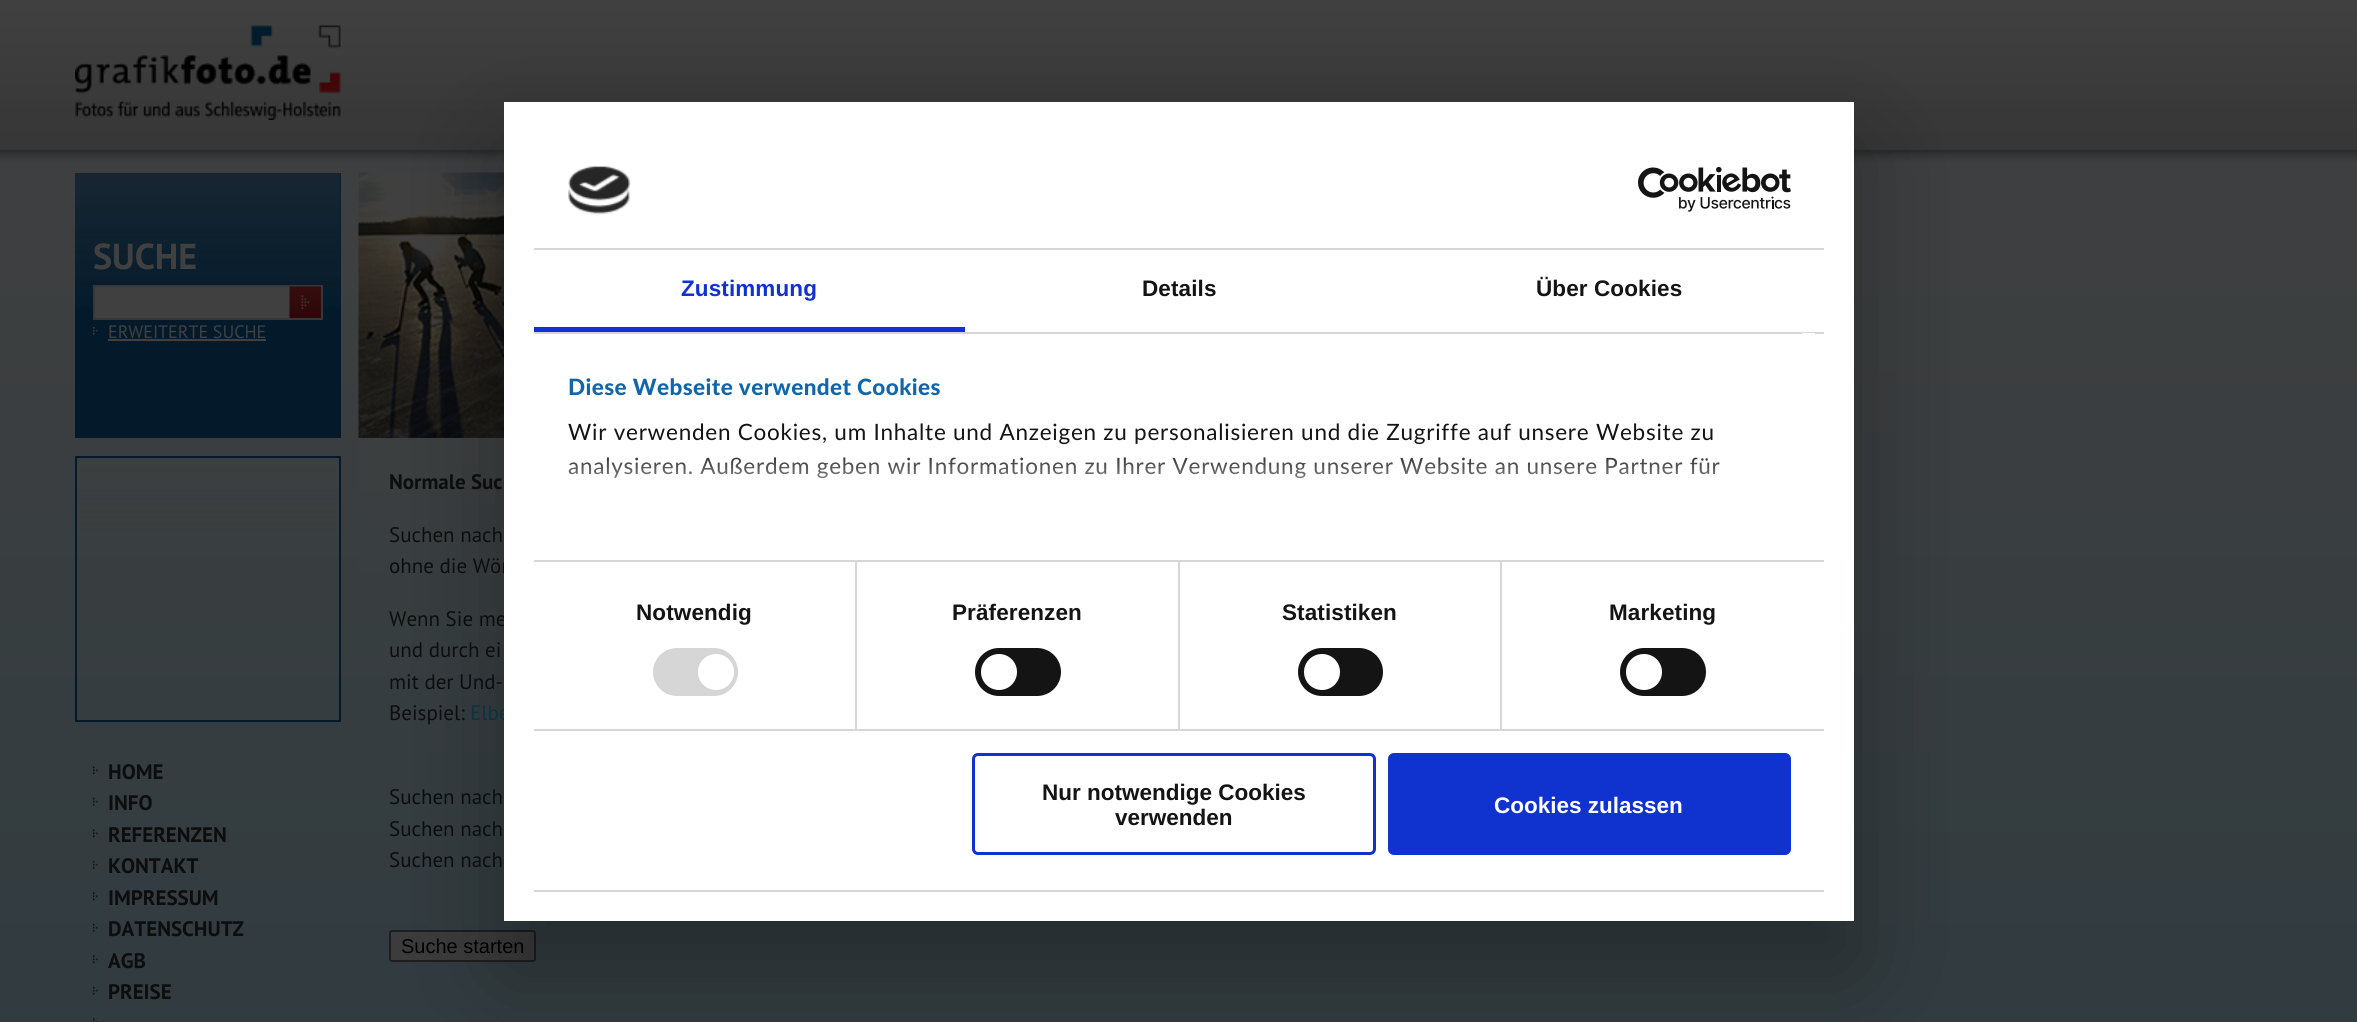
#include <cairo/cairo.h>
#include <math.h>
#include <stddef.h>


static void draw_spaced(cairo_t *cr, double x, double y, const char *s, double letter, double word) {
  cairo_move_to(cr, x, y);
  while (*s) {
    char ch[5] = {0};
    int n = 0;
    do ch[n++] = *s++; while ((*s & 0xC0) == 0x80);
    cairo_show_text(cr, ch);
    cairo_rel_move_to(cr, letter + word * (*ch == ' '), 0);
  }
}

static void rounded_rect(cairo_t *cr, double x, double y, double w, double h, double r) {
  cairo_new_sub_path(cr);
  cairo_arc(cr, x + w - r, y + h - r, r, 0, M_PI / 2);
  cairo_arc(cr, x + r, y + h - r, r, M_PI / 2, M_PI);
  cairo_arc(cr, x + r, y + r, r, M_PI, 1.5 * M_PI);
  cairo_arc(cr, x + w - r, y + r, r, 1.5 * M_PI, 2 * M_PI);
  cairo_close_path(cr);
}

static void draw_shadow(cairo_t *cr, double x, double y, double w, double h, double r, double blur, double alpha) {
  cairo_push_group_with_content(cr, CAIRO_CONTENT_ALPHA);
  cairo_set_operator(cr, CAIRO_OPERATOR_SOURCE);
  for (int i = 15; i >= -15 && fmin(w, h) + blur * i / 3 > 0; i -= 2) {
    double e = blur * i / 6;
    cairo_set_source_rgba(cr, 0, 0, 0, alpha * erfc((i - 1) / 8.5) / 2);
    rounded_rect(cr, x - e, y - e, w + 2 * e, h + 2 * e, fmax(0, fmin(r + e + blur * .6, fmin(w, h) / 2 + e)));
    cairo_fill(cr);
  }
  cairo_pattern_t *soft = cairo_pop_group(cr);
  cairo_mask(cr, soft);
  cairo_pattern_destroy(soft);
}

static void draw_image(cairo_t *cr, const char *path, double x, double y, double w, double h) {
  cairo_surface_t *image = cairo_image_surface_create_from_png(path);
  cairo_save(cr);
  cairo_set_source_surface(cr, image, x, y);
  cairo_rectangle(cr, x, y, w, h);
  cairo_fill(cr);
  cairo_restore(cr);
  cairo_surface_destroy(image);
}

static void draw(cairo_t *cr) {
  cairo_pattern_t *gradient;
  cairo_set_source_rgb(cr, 1, 1, 1);
  cairo_paint(cr);
  draw_image(cr, "images/1.png", 0, 0, 2357, 1022);
  draw_image(cr, "images/2.png", 75, 25, 266, 95);
  cairo_set_source_rgb(cr, 4 / 255.0, 26 / 255.0, 43 / 255.0);
  cairo_rectangle(cr, 75, 173, 266, 265);
  cairo_fill(cr);
  draw_image(cr, "images/3.png", 75, 173, 266, 134);
  cairo_set_source_rgb(cr, 64 / 255.0, 64 / 255.0, 64 / 255.0);
  cairo_rectangle(cr, 95, 287, 195, 31);
  cairo_fill(cr);
  cairo_set_source_rgb(cr, 55 / 255.0, 55 / 255.0, 55 / 255.0);
  cairo_rectangle(cr, 93, 285, 230, 2);
  cairo_fill(cr);
  cairo_rectangle(cr, 93, 318, 197, 2);
  cairo_fill(cr);
  cairo_rectangle(cr, 93, 285, 2, 35);
  cairo_fill(cr);
  cairo_rectangle(cr, 321, 285, 2, 35);
  cairo_fill(cr);
  cairo_rectangle(cr, 290, 318, 33, 2);
  cairo_fill(cr);
  draw_image(cr, "images/4.png", 289, 286, 32, 32);
  draw_image(cr, "images/5.png", 93, 327, 5, 8);
  cairo_set_source_rgb(cr, 64 / 255.0, 64 / 255.0, 64 / 255.0);
  cairo_rectangle(cr, 108, 339, 158, 2);
  cairo_fill(cr);
  draw_image(cr, "images/6.png", 77, 458, 262, 78);
  cairo_rectangle(cr, 76, 457, 264, 264);
  cairo_set_source_rgb(cr, 4 / 255.0, 26 / 255.0, 43 / 255.0);
  cairo_stroke(cr);
  draw_image(cr, "images/7.png", 93, 766, 5, 9);
  draw_image(cr, "images/8.png", 93, 797, 5, 9);
  draw_image(cr, "images/9.png", 93, 829, 5, 9);
  draw_image(cr, "images/10.png", 93, 860, 5, 9);
  draw_image(cr, "images/11.png", 93, 892, 5, 9);
  draw_image(cr, "images/12.png", 93, 923, 5, 9);
  draw_image(cr, "images/13.png", 93, 955, 5, 9);
  draw_image(cr, "images/14.png", 93, 986, 5, 9);
  draw_image(cr, "images/15.png", 93, 1018, 5, 4);
  draw_image(cr, "images/16.png", 358, 172, 146, 266);
  cairo_set_source_rgb(cr, 60 / 255.0, 60 / 255.0, 60 / 255.0);
  rounded_rect(cr, 390, 931, 145, 30, 2);
  cairo_fill_preserve(cr);
  cairo_set_source_rgb(cr, 30 / 255.0, 30 / 255.0, 30 / 255.0);
  cairo_stroke(cr);
  cairo_set_source_rgb(cr, 0, 0, 0);
  draw_shadow(cr, 504, 150, 1350, 819, 0, 51, 0.3);
  cairo_select_font_face(cr, "PT Sans", CAIRO_FONT_SLANT_NORMAL, CAIRO_FONT_WEIGHT_BOLD);
  cairo_set_font_size(cr, 36);
  cairo_set_source_rgb(cr, 64 / 255.0, 64 / 255.0, 64 / 255.0);
  cairo_move_to(cr, 93, 269);
  cairo_show_text(cr, "SUCHE");
  cairo_select_font_face(cr, "PT Sans", CAIRO_FONT_SLANT_NORMAL, CAIRO_FONT_WEIGHT_NORMAL);
  cairo_set_font_size(cr, 18);
  cairo_move_to(cr, 108, 338);
  cairo_show_text(cr, "ERWEITERTE SUCHE");
  cairo_select_font_face(cr, "PT Sans", CAIRO_FONT_SLANT_NORMAL, CAIRO_FONT_WEIGHT_BOLD);
  cairo_set_font_size(cr, 21);
  cairo_set_source_rgb(cr, 13 / 255.0, 13 / 255.0, 13 / 255.0);
  cairo_move_to(cr, 108, 779);
  cairo_show_text(cr, "HOME");
  cairo_move_to(cr, 108, 810);
  cairo_show_text(cr, "INFO");
  cairo_move_to(cr, 108, 842);
  cairo_show_text(cr, "REFERENZEN");
  cairo_move_to(cr, 108, 873);
  cairo_show_text(cr, "KONTAKT");
  cairo_move_to(cr, 108, 905);
  cairo_show_text(cr, "IMPRESSUM");
  cairo_move_to(cr, 108, 936);
  cairo_show_text(cr, "DATENSCHUTZ");
  cairo_move_to(cr, 108, 968);
  cairo_show_text(cr, "AGB");
  cairo_move_to(cr, 108, 999);
  cairo_show_text(cr, "PREISE");
  cairo_move_to(cr, 389, 489);
  cairo_show_text(cr, "Normale Suc");
  cairo_select_font_face(cr, "PT Sans", CAIRO_FONT_SLANT_NORMAL, CAIRO_FONT_WEIGHT_NORMAL);
  cairo_move_to(cr, 389, 542);
  cairo_show_text(cr, "Suchen nach");
  cairo_move_to(cr, 389, 573);
  cairo_show_text(cr, "ohne die Wör");
  cairo_move_to(cr, 389, 626);
  cairo_show_text(cr, "Wenn Sie me");
  cairo_move_to(cr, 389, 657);
  cairo_show_text(cr, "und durch ei");
  cairo_move_to(cr, 389, 689);
  cairo_show_text(cr, "mit der Und-");
  cairo_move_to(cr, 389, 720);
  cairo_show_text(cr, "Beispiel:");
  cairo_set_source_rgb(cr, 14 / 255.0, 50 / 255.0, 63 / 255.0);
  cairo_move_to(cr, 470, 720);
  cairo_show_text(cr, "Elbe");
  cairo_set_source_rgb(cr, 13 / 255.0, 13 / 255.0, 13 / 255.0);
  cairo_move_to(cr, 389, 804);
  cairo_show_text(cr, "Suchen nach");
  cairo_move_to(cr, 389, 836);
  cairo_show_text(cr, "Suchen nach");
  cairo_move_to(cr, 389, 867);
  cairo_show_text(cr, "Suchen nach");
  cairo_select_font_face(cr, "Liberation Sans", CAIRO_FONT_SLANT_NORMAL, CAIRO_FONT_WEIGHT_NORMAL);
  cairo_set_font_size(cr, 20);
  cairo_set_source_rgb(cr, 0, 0, 0);
  cairo_move_to(cr, 401, 953);
  cairo_show_text(cr, "Suche starten");
  cairo_set_source_rgb(cr, 1, 1, 1);
  cairo_rectangle(cr, 504, 102, 1350, 819);
  cairo_fill(cr);
  cairo_set_source_rgb(cr, 214 / 255.0, 214 / 255.0, 214 / 255.0);
  cairo_rectangle(cr, 534, 248, 1290, 2);
  cairo_fill(cr);
  draw_image(cr, "images/17.png", 568, 166, 63, 49);
  draw_image(cr, "images/18.png", 1638, 167, 153, 45);
  cairo_rectangle(cr, 534, 332, 1290, 2);
  cairo_fill(cr);
  cairo_set_source_rgb(cr, 16 / 255.0, 50 / 255.0, 207 / 255.0);
  cairo_rectangle(cr, 534, 327, 431, 5);
  cairo_fill(cr);
  cairo_select_font_face(cr, "Liberation Sans", CAIRO_FONT_SLANT_NORMAL, CAIRO_FONT_WEIGHT_BOLD);
  cairo_set_font_size(cr, 22.5);
  draw_spaced(cr, 681, 296, "Zustimmung", 0.1, 0);
  cairo_set_source_rgb(cr, 20 / 255.0, 20 / 255.0, 20 / 255.0);
  draw_spaced(cr, 1142, 296, "Details", 0.1, 0);
  draw_spaced(cr, 1536, 296, "Über Cookies", 0.1, 0);
  cairo_set_source_rgb(cr, 1, 1, 1);
  cairo_rectangle(cr, 1802, 333, 13, 1);
  cairo_fill(cr);
  cairo_select_font_face(cr, "Lato Black", CAIRO_FONT_SLANT_NORMAL, CAIRO_FONT_WEIGHT_NORMAL);
  cairo_set_source_rgb(cr, 17 / 255.0, 102 / 255.0, 170 / 255.0);
  draw_spaced(cr, 568, 395, "Diese Webseite verwendet Cookies", 0.4, 0);
  cairo_select_font_face(cr, "Lato", CAIRO_FONT_SLANT_NORMAL, CAIRO_FONT_WEIGHT_NORMAL);
  cairo_set_source_rgb(cr, 20 / 255.0, 20 / 255.0, 20 / 255.0);
  draw_spaced(cr, 568, 440, "Wir verwenden Cookies, um Inhalte und Anzeigen zu personalisieren und die Zugriffe auf unsere Website zu", 0.75, 0);
  draw_spaced(cr, 568, 474, "analysieren. Außerdem geben wir Informationen zu Ihrer Verwendung unserer Website an unsere Partner für", 0.75, 0);
  gradient = cairo_pattern_create_linear(1164, 560, 1164, 447);
  cairo_pattern_add_color_stop_rgba(gradient, 0, 1, 1, 1, 1);
  cairo_pattern_add_color_stop_rgba(gradient, 0.5, 1, 1, 1, 0.8);
  cairo_pattern_add_color_stop_rgba(gradient, 1, 1, 1, 1, 0);
  cairo_set_source(cr, gradient);
  cairo_pattern_destroy(gradient);
  cairo_rectangle(cr, 568, 457, 1152, 22);
  cairo_fill(cr);
  cairo_set_source_rgb(cr, 214 / 255.0, 214 / 255.0, 214 / 255.0);
  cairo_rectangle(cr, 534, 729, 1290, 2);
  cairo_fill(cr);
  cairo_rectangle(cr, 855, 561, 2, 168);
  cairo_fill(cr);
  cairo_select_font_face(cr, "Liberation Sans", CAIRO_FONT_SLANT_NORMAL, CAIRO_FONT_WEIGHT_BOLD);
  cairo_set_source_rgb(cr, 20 / 255.0, 20 / 255.0, 20 / 255.0);
  draw_spaced(cr, 636, 620, "Notwendig", 0.1, 0);
  cairo_set_source_rgb(cr, 214 / 255.0, 214 / 255.0, 214 / 255.0);
  rounded_rect(cr, 653, 648, 85, 48, 24);
  cairo_fill(cr);
  cairo_set_source_rgb(cr, 1, 1, 1);
  cairo_arc(cr, 716, 672, 18, 0, 2 * M_PI);
  cairo_fill(cr);
  cairo_set_source_rgb(cr, 214 / 255.0, 214 / 255.0, 214 / 255.0);
  cairo_rectangle(cr, 1178, 561, 2, 168);
  cairo_fill(cr);
  cairo_set_source_rgb(cr, 20 / 255.0, 20 / 255.0, 20 / 255.0);
  draw_spaced(cr, 952, 620, "Präferenzen", 0.1, 0);
  rounded_rect(cr, 975, 648, 86, 48, 24);
  cairo_fill(cr);
  cairo_set_source_rgb(cr, 1, 1, 1);
  cairo_arc(cr, 999, 672, 18, 0, 2 * M_PI);
  cairo_fill(cr);
  cairo_set_source_rgb(cr, 214 / 255.0, 214 / 255.0, 214 / 255.0);
  cairo_rectangle(cr, 1500, 561, 2, 168);
  cairo_fill(cr);
  cairo_rectangle(cr, 534, 560, 1290, 2);
  cairo_fill(cr);
  cairo_set_source_rgb(cr, 20 / 255.0, 20 / 255.0, 20 / 255.0);
  draw_spaced(cr, 1282, 620, "Statistiken", 0.1, 0);
  rounded_rect(cr, 1298, 648, 85, 48, 24);
  cairo_fill(cr);
  cairo_set_source_rgb(cr, 1, 1, 1);
  cairo_arc(cr, 1322, 672, 18, 0, 2 * M_PI);
  cairo_fill(cr);
  cairo_set_source_rgb(cr, 20 / 255.0, 20 / 255.0, 20 / 255.0);
  draw_spaced(cr, 1609, 620, "Marketing", 0.1, 0);
  rounded_rect(cr, 1620, 648, 86, 48, 24);
  cairo_fill(cr);
  cairo_set_source_rgb(cr, 1, 1, 1);
  cairo_arc(cr, 1644, 672, 18, 0, 2 * M_PI);
  cairo_fill(cr);
  cairo_set_source_rgb(cr, 214 / 255.0, 214 / 255.0, 214 / 255.0);
  cairo_rectangle(cr, 534, 890, 1290, 2);
  cairo_fill(cr);
  rounded_rect(cr, 973.5, 754.5, 401, 99, 4.5);
  cairo_set_source_rgb(cr, 16 / 255.0, 50 / 255.0, 207 / 255.0);
  cairo_set_line_width(cr, 3);
  cairo_stroke(cr);
  cairo_set_source_rgb(cr, 20 / 255.0, 20 / 255.0, 20 / 255.0);
  cairo_move_to(cr, 1042, 800);
  cairo_show_text(cr, "Nur notwendige Cookies");
  cairo_move_to(cr, 1115, 825);
  cairo_show_text(cr, "verwenden");
  cairo_set_source_rgb(cr, 16 / 255.0, 50 / 255.0, 207 / 255.0);
  rounded_rect(cr, 1389.5, 754.5, 400, 99, 4.5);
  cairo_fill_preserve(cr);
  cairo_stroke(cr);
  cairo_set_source_rgb(cr, 1, 1, 1);
  cairo_move_to(cr, 1494, 813);
  cairo_show_text(cr, "Cookies zulassen");
}

int main(void) {
  cairo_surface_t *surface = cairo_image_surface_create(CAIRO_FORMAT_RGB24, 2357, 1022);
  cairo_t *cr = cairo_create(surface);
  cairo_font_options_t *options = cairo_font_options_create();
  cairo_font_options_set_hint_metrics(options, CAIRO_HINT_METRICS_OFF);
  cairo_font_options_set_hint_style(options, CAIRO_HINT_STYLE_NONE);
  cairo_set_font_options(cr, options);
  cairo_set_miter_limit(cr, 4);
  draw(cr);
  cairo_surface_write_to_png(surface, "out.png");
  cairo_font_options_destroy(options);
  cairo_destroy(cr);
  cairo_surface_destroy(surface);
  return 0;
}
